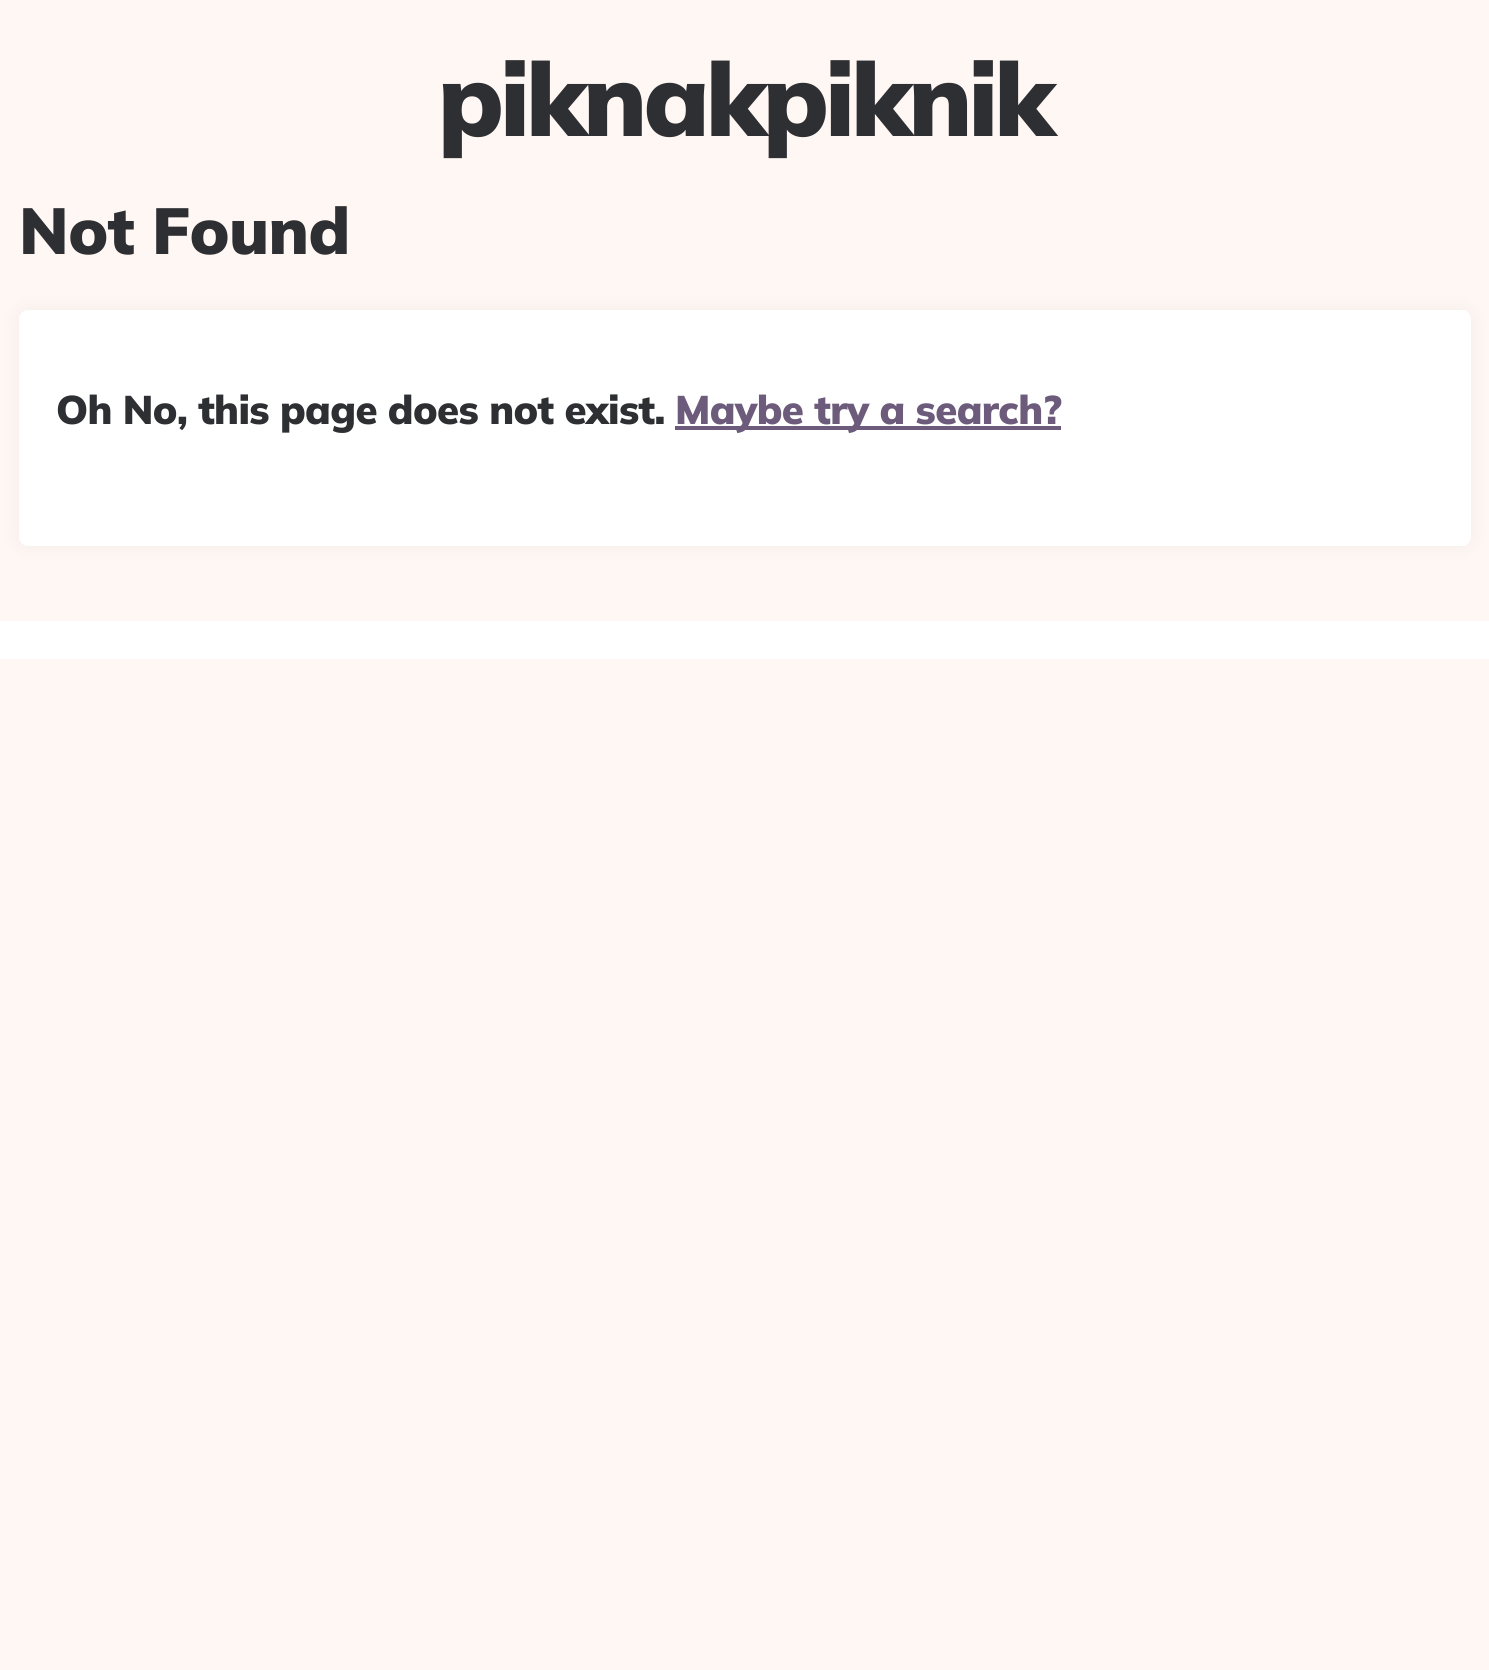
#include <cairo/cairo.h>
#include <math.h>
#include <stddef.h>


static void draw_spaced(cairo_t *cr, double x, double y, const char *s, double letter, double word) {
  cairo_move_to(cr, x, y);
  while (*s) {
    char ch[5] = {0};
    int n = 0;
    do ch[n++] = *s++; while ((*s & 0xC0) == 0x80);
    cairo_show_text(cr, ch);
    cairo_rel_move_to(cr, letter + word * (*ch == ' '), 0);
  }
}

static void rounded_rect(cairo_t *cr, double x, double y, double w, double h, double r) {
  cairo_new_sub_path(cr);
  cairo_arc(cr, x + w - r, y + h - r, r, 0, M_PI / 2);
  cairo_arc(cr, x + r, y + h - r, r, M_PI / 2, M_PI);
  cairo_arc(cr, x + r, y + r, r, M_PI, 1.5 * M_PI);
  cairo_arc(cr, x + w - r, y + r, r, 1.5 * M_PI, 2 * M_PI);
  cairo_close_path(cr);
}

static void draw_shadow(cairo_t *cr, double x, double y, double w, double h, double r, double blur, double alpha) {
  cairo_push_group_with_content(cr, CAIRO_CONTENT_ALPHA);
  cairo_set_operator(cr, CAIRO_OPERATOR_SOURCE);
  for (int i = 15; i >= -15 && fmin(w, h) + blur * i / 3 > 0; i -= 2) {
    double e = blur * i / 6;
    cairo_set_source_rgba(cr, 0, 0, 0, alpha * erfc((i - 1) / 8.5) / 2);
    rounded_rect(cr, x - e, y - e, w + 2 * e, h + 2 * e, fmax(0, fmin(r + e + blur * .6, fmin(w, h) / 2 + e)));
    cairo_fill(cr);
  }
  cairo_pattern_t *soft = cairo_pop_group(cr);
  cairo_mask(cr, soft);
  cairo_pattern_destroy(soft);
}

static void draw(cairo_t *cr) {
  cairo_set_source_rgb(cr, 1, 247 / 255.0, 243 / 255.0);
  cairo_paint(cr);
  cairo_set_source_rgb(cr, 0, 0, 0);
  draw_shadow(cr, 19, 310, 1452, 236, 9, 9.5, 0.05);
  cairo_set_source_rgb(cr, 1, 1, 1);
  rounded_rect(cr, 19, 310, 1452, 236, 9);
  cairo_fill(cr);
  cairo_set_source_rgb(cr, 108 / 255.0, 91 / 255.0, 123 / 255.0);
  cairo_rectangle(cr, 675, 426, 386, 4);
  cairo_fill(cr);
  cairo_set_source_rgb(cr, 1, 1, 1);
  cairo_rectangle(cr, 0, 621, 1489, 38);
  cairo_fill(cr);
  cairo_select_font_face(cr, "Mulish Black", CAIRO_FONT_SLANT_NORMAL, CAIRO_FONT_WEIGHT_NORMAL);
  cairo_set_font_size(cr, 102.5);
  cairo_set_source_rgb(cr, 46 / 255.0, 47 / 255.0, 51 / 255.0);
  draw_spaced(cr, 438, 136, "piknakpiknik", -3.75, 0);
  cairo_set_font_size(cr, 65);
  draw_spaced(cr, 19, 254, "Not Found", -0.6, 0);
  cairo_set_font_size(cr, 40);
  draw_spaced(cr, 56, 424, "Oh No, this page does not exist.", -0.6, 0);
  cairo_set_source_rgb(cr, 108 / 255.0, 91 / 255.0, 123 / 255.0);
  draw_spaced(cr, 675, 424, "Maybe try a search?", -0.6, 0);
}

int main(void) {
  cairo_surface_t *surface = cairo_image_surface_create(CAIRO_FORMAT_RGB24, 1489, 1670);
  cairo_t *cr = cairo_create(surface);
  cairo_font_options_t *options = cairo_font_options_create();
  cairo_font_options_set_hint_metrics(options, CAIRO_HINT_METRICS_OFF);
  cairo_font_options_set_hint_style(options, CAIRO_HINT_STYLE_NONE);
  cairo_set_font_options(cr, options);
  cairo_set_miter_limit(cr, 4);
  draw(cr);
  cairo_surface_write_to_png(surface, "out.png");
  cairo_font_options_destroy(options);
  cairo_destroy(cr);
  cairo_surface_destroy(surface);
  return 0;
}
